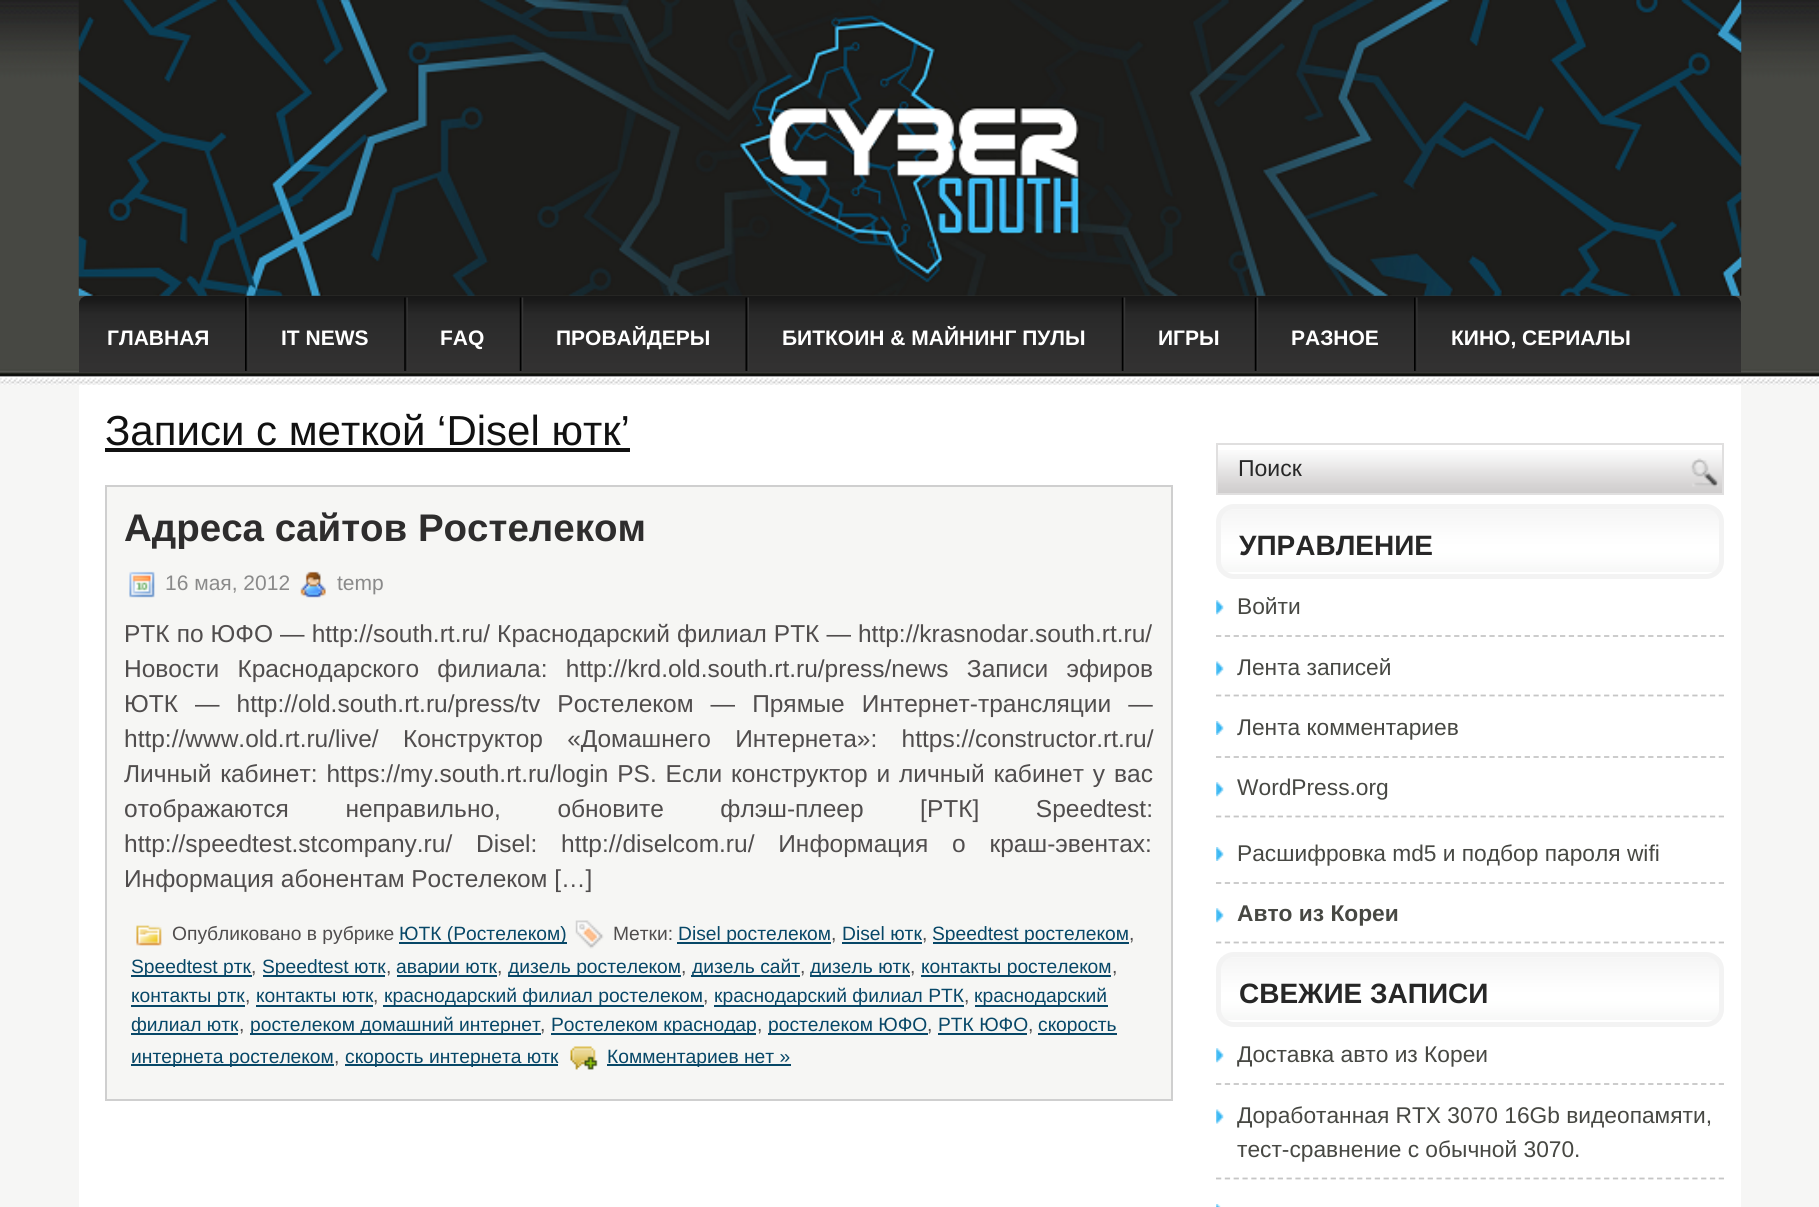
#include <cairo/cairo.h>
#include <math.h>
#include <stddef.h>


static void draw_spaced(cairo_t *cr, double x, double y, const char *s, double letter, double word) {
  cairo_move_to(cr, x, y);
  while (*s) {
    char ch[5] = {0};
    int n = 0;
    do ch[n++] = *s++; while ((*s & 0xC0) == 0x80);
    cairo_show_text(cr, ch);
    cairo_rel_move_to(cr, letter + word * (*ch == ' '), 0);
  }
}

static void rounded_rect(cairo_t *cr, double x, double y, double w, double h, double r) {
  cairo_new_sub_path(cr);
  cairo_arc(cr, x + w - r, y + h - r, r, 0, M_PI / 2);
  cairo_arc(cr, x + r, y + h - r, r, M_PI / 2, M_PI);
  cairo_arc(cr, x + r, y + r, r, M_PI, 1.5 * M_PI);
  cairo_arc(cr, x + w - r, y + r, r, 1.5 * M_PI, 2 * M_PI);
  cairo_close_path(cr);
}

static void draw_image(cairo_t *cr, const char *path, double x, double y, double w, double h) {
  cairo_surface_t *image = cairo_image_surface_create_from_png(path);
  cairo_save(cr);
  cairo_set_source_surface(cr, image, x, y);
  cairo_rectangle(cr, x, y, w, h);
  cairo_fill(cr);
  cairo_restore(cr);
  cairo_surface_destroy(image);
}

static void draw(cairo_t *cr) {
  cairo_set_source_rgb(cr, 246 / 255.0, 246 / 255.0, 245 / 255.0);
  cairo_paint(cr);
  draw_image(cr, "images/1.png", 0, 0, 1819, 385);
  draw_image(cr, "images/2.png", 78, 0, 1664, 296);
  draw_image(cr, "images/3.png", 79, 295, 1662, 78);
  draw_image(cr, "images/4.png", 245, 297, 4, 74);
  draw_image(cr, "images/5.png", 404, 297, 4, 74);
  draw_image(cr, "images/6.png", 519, 297, 5, 74);
  draw_image(cr, "images/7.png", 745, 297, 4, 74);
  draw_image(cr, "images/6.png", 1121, 297, 5, 74);
  draw_image(cr, "images/6.png", 1254, 297, 5, 74);
  draw_image(cr, "images/4.png", 1414, 297, 4, 74);
  cairo_set_source_rgb(cr, 1, 1, 1);
  cairo_rectangle(cr, 79, 385, 1662, 822);
  cairo_fill(cr);
  cairo_set_source_rgb(cr, 17 / 255.0, 17 / 255.0, 17 / 255.0);
  cairo_rectangle(cr, 105, 448, 525, 4);
  cairo_fill(cr);
  cairo_set_source_rgb(cr, 246 / 255.0, 246 / 255.0, 244 / 255.0);
  cairo_rectangle(cr, 106, 486, 1066, 614);
  cairo_fill_preserve(cr);
  cairo_set_source_rgb(cr, 207 / 255.0, 207 / 255.0, 207 / 255.0);
  cairo_stroke(cr);
  draw_image(cr, "images/8.png", 129, 571, 26, 27);
  draw_image(cr, "images/9.png", 300, 571, 26, 27);
  draw_image(cr, "images/10.png", 136, 925, 26, 21);
  cairo_set_source_rgb(cr, 7 / 255.0, 71 / 255.0, 103 / 255.0);
  cairo_rectangle(cr, 399, 942, 168, 2);
  cairo_fill(cr);
  draw_image(cr, "images/11.png", 575, 920, 29, 29);
  cairo_rectangle(cr, 677, 942, 154, 2);
  cairo_fill(cr);
  cairo_rectangle(cr, 842, 942, 80, 2);
  cairo_fill(cr);
  cairo_rectangle(cr, 933, 942, 196, 2);
  cairo_fill(cr);
  cairo_rectangle(cr, 131, 975, 121, 2);
  cairo_fill(cr);
  cairo_rectangle(cr, 263, 975, 122, 2);
  cairo_fill(cr);
  cairo_rectangle(cr, 397, 975, 100, 2);
  cairo_fill(cr);
  cairo_rectangle(cr, 508, 975, 173, 2);
  cairo_fill(cr);
  cairo_rectangle(cr, 691, 975, 109, 2);
  cairo_fill(cr);
  cairo_rectangle(cr, 810, 975, 100, 2);
  cairo_fill(cr);
  cairo_rectangle(cr, 921, 975, 190, 2);
  cairo_fill(cr);
  cairo_rectangle(cr, 131, 1005, 114, 2);
  cairo_fill(cr);
  cairo_rectangle(cr, 256, 1005, 117, 2);
  cairo_fill(cr);
  cairo_rectangle(cr, 383, 1005, 321, 2);
  cairo_fill(cr);
  cairo_rectangle(cr, 714, 1005, 250, 2);
  cairo_fill(cr);
  cairo_rectangle(cr, 975, 1005, 133, 2);
  cairo_fill(cr);
  cairo_rectangle(cr, 131, 1033, 107, 2);
  cairo_fill(cr);
  cairo_rectangle(cr, 250, 1033, 291, 2);
  cairo_fill(cr);
  cairo_rectangle(cr, 551, 1033, 205, 2);
  cairo_fill(cr);
  cairo_rectangle(cr, 768, 1033, 160, 2);
  cairo_fill(cr);
  cairo_rectangle(cr, 938, 1033, 89, 2);
  cairo_fill(cr);
  cairo_rectangle(cr, 1038, 1033, 79, 2);
  cairo_fill(cr);
  cairo_rectangle(cr, 131, 1064, 203, 2);
  cairo_fill(cr);
  cairo_rectangle(cr, 345, 1064, 213, 2);
  cairo_fill(cr);
  draw_image(cr, "images/12.png", 570, 1046, 28, 24);
  cairo_rectangle(cr, 607, 1064, 184, 2);
  cairo_fill(cr);
  draw_image(cr, "images/13.png", 1218, 450, 504, 43);
  cairo_rectangle(cr, 1217, 444, 506, 50);
  cairo_set_source_rgb(cr, 224 / 255.0, 223 / 255.0, 223 / 255.0);
  cairo_stroke(cr);
  draw_image(cr, "images/14.png", 1690, 458, 29, 29);
  draw_image(cr, "images/15.png", 1217, 509, 506, 63);
  rounded_rect(cr, 1218.5, 506.5, 503, 70, 15.5);
  cairo_set_source_rgb(cr, 243 / 255.0, 243 / 255.0, 243 / 255.0);
  cairo_set_line_width(cr, 5);
  cairo_stroke(cr);
  draw_image(cr, "images/16.png", 1216, 600, 8, 15);
  cairo_new_path(cr);
  cairo_move_to(cr, 1216, 636);
  cairo_line_to(cr, 1724, 636);
  cairo_set_source_rgb(cr, 198 / 255.0, 198 / 255.0, 198 / 255.0);
  cairo_set_line_width(cr, 1.8);
  cairo_set_dash(cr, (double[]){5.25, 3.57}, 2, 0);
  cairo_stroke(cr);
  draw_image(cr, "images/17.png", 1216, 661, 8, 15);
  cairo_new_path(cr);
  cairo_move_to(cr, 1216, 695.5);
  cairo_line_to(cr, 1724, 695.5);
  cairo_stroke(cr);
  draw_image(cr, "images/18.png", 1216, 721, 8, 14);
  cairo_new_path(cr);
  cairo_move_to(cr, 1216, 757);
  cairo_line_to(cr, 1724, 757);
  cairo_stroke(cr);
  draw_image(cr, "images/16.png", 1216, 782, 8, 15);
  cairo_new_path(cr);
  cairo_move_to(cr, 1216, 816.5);
  cairo_line_to(cr, 1724, 816.5);
  cairo_stroke(cr);
  draw_image(cr, "images/18.png", 1216, 847, 8, 14);
  cairo_new_path(cr);
  cairo_move_to(cr, 1216, 883);
  cairo_line_to(cr, 1724, 883);
  cairo_stroke(cr);
  draw_image(cr, "images/16.png", 1216, 908, 8, 15);
  cairo_new_path(cr);
  cairo_move_to(cr, 1216, 942.5);
  cairo_line_to(cr, 1724, 942.5);
  cairo_stroke(cr);
  draw_image(cr, "images/19.png", 1217, 957, 506, 63);
  rounded_rect(cr, 1218.5, 954.5, 503, 70, 15.5);
  cairo_set_source_rgb(cr, 243 / 255.0, 243 / 255.0, 243 / 255.0);
  cairo_set_line_width(cr, 5);
  cairo_set_dash(cr, NULL, 0, 0);
  cairo_stroke(cr);
  draw_image(cr, "images/16.png", 1216, 1048, 8, 15);
  cairo_new_path(cr);
  cairo_move_to(cr, 1216, 1084);
  cairo_line_to(cr, 1724, 1084);
  cairo_set_source_rgb(cr, 198 / 255.0, 198 / 255.0, 198 / 255.0);
  cairo_set_line_width(cr, 1.8);
  cairo_set_dash(cr, (double[]){5.25, 3.57}, 2, 0);
  cairo_stroke(cr);
  draw_image(cr, "images/17.png", 1216, 1109, 8, 15);
  cairo_new_path(cr);
  cairo_move_to(cr, 1216, 1178.5);
  cairo_line_to(cr, 1724, 1178.5);
  cairo_stroke(cr);
  draw_image(cr, "images/20.png", 1216, 1204, 5, 3);
  cairo_select_font_face(cr, "Liberation Sans", CAIRO_FONT_SLANT_NORMAL, CAIRO_FONT_WEIGHT_BOLD);
  cairo_set_font_size(cr, 21);
  cairo_set_source_rgb(cr, 1, 1, 1);
  cairo_move_to(cr, 107, 345);
  cairo_show_text(cr, "ГЛАВНАЯ");
  cairo_move_to(cr, 281, 345);
  cairo_show_text(cr, "IT NEWS");
  cairo_move_to(cr, 440, 345);
  cairo_show_text(cr, "FAQ");
  cairo_move_to(cr, 556, 345);
  cairo_show_text(cr, "ПРОВАЙДЕРЫ");
  cairo_move_to(cr, 782, 345);
  cairo_show_text(cr, "БИТКОИН & МАЙНИНГ ПУЛЫ");
  cairo_move_to(cr, 1158, 345);
  cairo_show_text(cr, "ИГРЫ");
  cairo_move_to(cr, 1291, 345);
  cairo_show_text(cr, "РАЗНОЕ");
  cairo_move_to(cr, 1451, 345);
  cairo_show_text(cr, "КИНО, СЕРИАЛЫ");
  cairo_select_font_face(cr, "Liberation Sans", CAIRO_FONT_SLANT_NORMAL, CAIRO_FONT_WEIGHT_NORMAL);
  cairo_set_font_size(cr, 42);
  cairo_set_source_rgb(cr, 17 / 255.0, 17 / 255.0, 17 / 255.0);
  cairo_move_to(cr, 105, 445);
  cairo_show_text(cr, "Записи с меткой ‘Disel ютк’");
  cairo_select_font_face(cr, "Liberation Sans", CAIRO_FONT_SLANT_NORMAL, CAIRO_FONT_WEIGHT_BOLD);
  cairo_set_font_size(cr, 38.5);
  cairo_set_source_rgb(cr, 46 / 255.0, 45 / 255.0, 45 / 255.0);
  cairo_move_to(cr, 124, 541);
  cairo_show_text(cr, "Адреса сайтов Ростелеком");
  cairo_select_font_face(cr, "Liberation Sans", CAIRO_FONT_SLANT_NORMAL, CAIRO_FONT_WEIGHT_NORMAL);
  cairo_set_font_size(cr, 21);
  cairo_set_source_rgb(cr, 138 / 255.0, 138 / 255.0, 138 / 255.0);
  cairo_move_to(cr, 165, 590);
  cairo_show_text(cr, "16 мая, 2012");
  cairo_move_to(cr, 337, 590);
  cairo_show_text(cr, "temp");
  cairo_set_font_size(cr, 24.5);
  cairo_set_source_rgb(cr, 80 / 255.0, 77 / 255.0, 77 / 255.0);
  draw_spaced(cr, 124, 642, "РТК по ЮФО — http://south.rt.ru/ Краснодарский филиал РТК — http://krasnodar.south.rt.ru/", 0, 0.25);
  draw_spaced(cr, 124, 677, "Новости Краснодарского филиала: http://krd.old.south.rt.ru/press/news Записи эфиров", 0, 11.5);
  draw_spaced(cr, 124, 712, "ЮТК — http://old.south.rt.ru/press/tv Ростелеком — Прямые Интернет-трансляции —", 0, 10.25);
  draw_spaced(cr, 124, 747, "http://www.old.rt.ru/live/ Конструктор «Домашнего Интернета»: https://constructor.rt.ru/", 0, 17.5);
  draw_spaced(cr, 124, 782, "Личный кабинет: https://my.south.rt.ru/login PS. Если конструктор и личный кабинет у вас", 0, 2.1);
  draw_spaced(cr, 124, 817, "отображаются неправильно, обновите флэш-плеер [РТК] Speedtest:", 0, 49.75);
  draw_spaced(cr, 124, 852, "http://speedtest.stcompany.ru/ Disel: http://diselcom.ru/ Информация о краш-эвентах:", 0, 17);
  cairo_move_to(cr, 124, 887);
  cairo_show_text(cr, "Информация абонентам Ростелеком […]");
  cairo_set_font_size(cr, 19.25);
  cairo_move_to(cr, 172, 940);
  cairo_show_text(cr, "Опубликовано в рубрике");
  cairo_set_source_rgb(cr, 7 / 255.0, 71 / 255.0, 103 / 255.0);
  cairo_move_to(cr, 399, 940);
  cairo_show_text(cr, "ЮТК (Ростелеком)");
  cairo_set_source_rgb(cr, 80 / 255.0, 77 / 255.0, 77 / 255.0);
  cairo_move_to(cr, 613, 940);
  cairo_show_text(cr, "Метки:");
  cairo_set_source_rgb(cr, 7 / 255.0, 71 / 255.0, 103 / 255.0);
  cairo_move_to(cr, 678, 940);
  cairo_show_text(cr, "Disel ростелеком");
  cairo_set_source_rgb(cr, 80 / 255.0, 77 / 255.0, 77 / 255.0);
  cairo_move_to(cr, 831, 940);
  cairo_show_text(cr, ",");
  cairo_set_source_rgb(cr, 7 / 255.0, 71 / 255.0, 103 / 255.0);
  cairo_move_to(cr, 842, 940);
  cairo_show_text(cr, "Disel ютк");
  cairo_set_source_rgb(cr, 80 / 255.0, 77 / 255.0, 77 / 255.0);
  cairo_move_to(cr, 922, 940);
  cairo_show_text(cr, ",");
  cairo_set_source_rgb(cr, 7 / 255.0, 71 / 255.0, 103 / 255.0);
  cairo_move_to(cr, 932, 940);
  cairo_show_text(cr, "Speedtest ростелеком");
  cairo_set_source_rgb(cr, 80 / 255.0, 77 / 255.0, 77 / 255.0);
  cairo_move_to(cr, 1129, 940);
  cairo_show_text(cr, ",");
  cairo_set_source_rgb(cr, 7 / 255.0, 71 / 255.0, 103 / 255.0);
  cairo_move_to(cr, 131, 973);
  cairo_show_text(cr, "Speedtest ртк");
  cairo_set_source_rgb(cr, 80 / 255.0, 77 / 255.0, 77 / 255.0);
  cairo_move_to(cr, 251, 973);
  cairo_show_text(cr, ",");
  cairo_set_source_rgb(cr, 7 / 255.0, 71 / 255.0, 103 / 255.0);
  cairo_move_to(cr, 262, 973);
  cairo_show_text(cr, "Speedtest ютк");
  cairo_set_source_rgb(cr, 80 / 255.0, 77 / 255.0, 77 / 255.0);
  cairo_move_to(cr, 386, 973);
  cairo_show_text(cr, ",");
  cairo_set_source_rgb(cr, 7 / 255.0, 71 / 255.0, 103 / 255.0);
  cairo_move_to(cr, 396, 973);
  cairo_show_text(cr, "аварии ютк");
  cairo_set_source_rgb(cr, 80 / 255.0, 77 / 255.0, 77 / 255.0);
  cairo_move_to(cr, 497, 973);
  cairo_show_text(cr, ",");
  cairo_set_source_rgb(cr, 7 / 255.0, 71 / 255.0, 103 / 255.0);
  cairo_move_to(cr, 508, 973);
  cairo_show_text(cr, "дизель ростелеком");
  cairo_set_source_rgb(cr, 80 / 255.0, 77 / 255.0, 77 / 255.0);
  cairo_move_to(cr, 681, 973);
  cairo_show_text(cr, ",");
  cairo_set_source_rgb(cr, 7 / 255.0, 71 / 255.0, 103 / 255.0);
  cairo_move_to(cr, 692, 973);
  cairo_show_text(cr, "дизель сайт");
  cairo_set_source_rgb(cr, 80 / 255.0, 77 / 255.0, 77 / 255.0);
  cairo_move_to(cr, 800, 973);
  cairo_show_text(cr, ",");
  cairo_set_source_rgb(cr, 7 / 255.0, 71 / 255.0, 103 / 255.0);
  cairo_move_to(cr, 810, 973);
  cairo_show_text(cr, "дизель ютк");
  cairo_set_source_rgb(cr, 80 / 255.0, 77 / 255.0, 77 / 255.0);
  cairo_move_to(cr, 910, 973);
  cairo_show_text(cr, ",");
  cairo_set_source_rgb(cr, 7 / 255.0, 71 / 255.0, 103 / 255.0);
  cairo_move_to(cr, 921, 973);
  cairo_show_text(cr, "контакты ростелеком");
  cairo_set_source_rgb(cr, 80 / 255.0, 77 / 255.0, 77 / 255.0);
  cairo_move_to(cr, 1112, 973);
  cairo_show_text(cr, ",");
  cairo_set_source_rgb(cr, 7 / 255.0, 71 / 255.0, 103 / 255.0);
  cairo_move_to(cr, 131, 1002);
  cairo_show_text(cr, "контакты ртк");
  cairo_set_source_rgb(cr, 80 / 255.0, 77 / 255.0, 77 / 255.0);
  cairo_move_to(cr, 245, 1002);
  cairo_show_text(cr, ",");
  cairo_set_source_rgb(cr, 7 / 255.0, 71 / 255.0, 103 / 255.0);
  cairo_move_to(cr, 256, 1002);
  cairo_show_text(cr, "контакты ютк");
  cairo_set_source_rgb(cr, 80 / 255.0, 77 / 255.0, 77 / 255.0);
  cairo_move_to(cr, 373, 1002);
  cairo_show_text(cr, ",");
  cairo_set_source_rgb(cr, 7 / 255.0, 71 / 255.0, 103 / 255.0);
  cairo_move_to(cr, 384, 1002);
  cairo_show_text(cr, "краснодарский филиал ростелеком");
  cairo_set_source_rgb(cr, 80 / 255.0, 77 / 255.0, 77 / 255.0);
  cairo_move_to(cr, 703, 1002);
  cairo_show_text(cr, ",");
  cairo_set_source_rgb(cr, 7 / 255.0, 71 / 255.0, 103 / 255.0);
  cairo_move_to(cr, 714, 1002);
  cairo_show_text(cr, "краснодарский филиал РТК");
  cairo_set_source_rgb(cr, 80 / 255.0, 77 / 255.0, 77 / 255.0);
  cairo_move_to(cr, 964, 1002);
  cairo_show_text(cr, ",");
  cairo_set_source_rgb(cr, 7 / 255.0, 71 / 255.0, 103 / 255.0);
  cairo_move_to(cr, 974, 1002);
  cairo_show_text(cr, "краснодарский");
  cairo_move_to(cr, 131, 1031);
  cairo_show_text(cr, "филиал ютк");
  cairo_set_source_rgb(cr, 80 / 255.0, 77 / 255.0, 77 / 255.0);
  cairo_move_to(cr, 239, 1031);
  cairo_show_text(cr, ",");
  cairo_set_source_rgb(cr, 7 / 255.0, 71 / 255.0, 103 / 255.0);
  cairo_move_to(cr, 250, 1031);
  cairo_show_text(cr, "ростелеком домашний интернет");
  cairo_set_source_rgb(cr, 80 / 255.0, 77 / 255.0, 77 / 255.0);
  cairo_move_to(cr, 540, 1031);
  cairo_show_text(cr, ",");
  cairo_set_source_rgb(cr, 7 / 255.0, 71 / 255.0, 103 / 255.0);
  cairo_move_to(cr, 551, 1031);
  cairo_show_text(cr, "Ростелеком краснодар");
  cairo_set_source_rgb(cr, 80 / 255.0, 77 / 255.0, 77 / 255.0);
  cairo_move_to(cr, 757, 1031);
  cairo_show_text(cr, ",");
  cairo_set_source_rgb(cr, 7 / 255.0, 71 / 255.0, 103 / 255.0);
  cairo_move_to(cr, 768, 1031);
  cairo_show_text(cr, "ростелеком ЮФО");
  cairo_set_source_rgb(cr, 80 / 255.0, 77 / 255.0, 77 / 255.0);
  cairo_move_to(cr, 927, 1031);
  cairo_show_text(cr, ",");
  cairo_set_source_rgb(cr, 7 / 255.0, 71 / 255.0, 103 / 255.0);
  cairo_move_to(cr, 938, 1031);
  cairo_show_text(cr, "РТК ЮФО");
  cairo_set_source_rgb(cr, 80 / 255.0, 77 / 255.0, 77 / 255.0);
  cairo_move_to(cr, 1028, 1031);
  cairo_show_text(cr, ",");
  cairo_set_source_rgb(cr, 7 / 255.0, 71 / 255.0, 103 / 255.0);
  cairo_move_to(cr, 1038, 1031);
  cairo_show_text(cr, "скорость");
  cairo_move_to(cr, 131, 1063);
  cairo_show_text(cr, "интернета ростелеком");
  cairo_set_source_rgb(cr, 80 / 255.0, 77 / 255.0, 77 / 255.0);
  cairo_move_to(cr, 334, 1063);
  cairo_show_text(cr, ",");
  cairo_set_source_rgb(cr, 7 / 255.0, 71 / 255.0, 103 / 255.0);
  cairo_move_to(cr, 345, 1063);
  cairo_show_text(cr, "скорость интернета ютк");
  cairo_move_to(cr, 607, 1063);
  cairo_show_text(cr, "Комментариев нет »");
  cairo_set_font_size(cr, 23);
  cairo_set_source_rgb(cr, 39 / 255.0, 39 / 255.0, 39 / 255.0);
  cairo_move_to(cr, 1238, 476);
  cairo_show_text(cr, "Поиск");
  cairo_select_font_face(cr, "Liberation Sans", CAIRO_FONT_SLANT_NORMAL, CAIRO_FONT_WEIGHT_BOLD);
  cairo_set_font_size(cr, 28);
  cairo_move_to(cr, 1239, 555);
  cairo_show_text(cr, "УПРАВЛЕНИЕ");
  cairo_select_font_face(cr, "Liberation Sans", CAIRO_FONT_SLANT_NORMAL, CAIRO_FONT_WEIGHT_NORMAL);
  cairo_set_font_size(cr, 22.75);
  cairo_set_source_rgb(cr, 71 / 255.0, 72 / 255.0, 67 / 255.0);
  cairo_move_to(cr, 1237, 614);
  cairo_show_text(cr, "Войти");
  cairo_move_to(cr, 1237, 675);
  cairo_show_text(cr, "Лента записей");
  cairo_move_to(cr, 1237, 735);
  cairo_show_text(cr, "Лента комментариев");
  cairo_move_to(cr, 1237, 795);
  cairo_show_text(cr, "WordPress.org");
  cairo_move_to(cr, 1237, 861);
  cairo_show_text(cr, "Расшифровка md5 и подбор пароля wifi");
  cairo_select_font_face(cr, "Liberation Sans", CAIRO_FONT_SLANT_NORMAL, CAIRO_FONT_WEIGHT_BOLD);
  cairo_move_to(cr, 1237, 921);
  cairo_show_text(cr, "Авто из Кореи");
  cairo_set_font_size(cr, 28);
  cairo_set_source_rgb(cr, 39 / 255.0, 39 / 255.0, 39 / 255.0);
  cairo_move_to(cr, 1239, 1003);
  cairo_show_text(cr, "СВЕЖИЕ ЗАПИСИ");
  cairo_select_font_face(cr, "Liberation Sans", CAIRO_FONT_SLANT_NORMAL, CAIRO_FONT_WEIGHT_NORMAL);
  cairo_set_font_size(cr, 22.75);
  cairo_set_source_rgb(cr, 71 / 255.0, 72 / 255.0, 67 / 255.0);
  cairo_move_to(cr, 1237, 1062);
  cairo_show_text(cr, "Доставка авто из Кореи");
  cairo_move_to(cr, 1237, 1123);
  cairo_show_text(cr, "Доработанная RTX 3070 16Gb видеопамяти,");
  cairo_move_to(cr, 1237, 1157);
  cairo_show_text(cr, "тест-сравнение с обычной 3070.");
}

int main(void) {
  cairo_surface_t *surface = cairo_image_surface_create(CAIRO_FORMAT_RGB24, 1819, 1207);
  cairo_t *cr = cairo_create(surface);
  cairo_font_options_t *options = cairo_font_options_create();
  cairo_font_options_set_hint_metrics(options, CAIRO_HINT_METRICS_OFF);
  cairo_font_options_set_hint_style(options, CAIRO_HINT_STYLE_NONE);
  cairo_set_font_options(cr, options);
  cairo_set_miter_limit(cr, 4);
  draw(cr);
  cairo_surface_write_to_png(surface, "out.png");
  cairo_font_options_destroy(options);
  cairo_destroy(cr);
  cairo_surface_destroy(surface);
  return 0;
}
